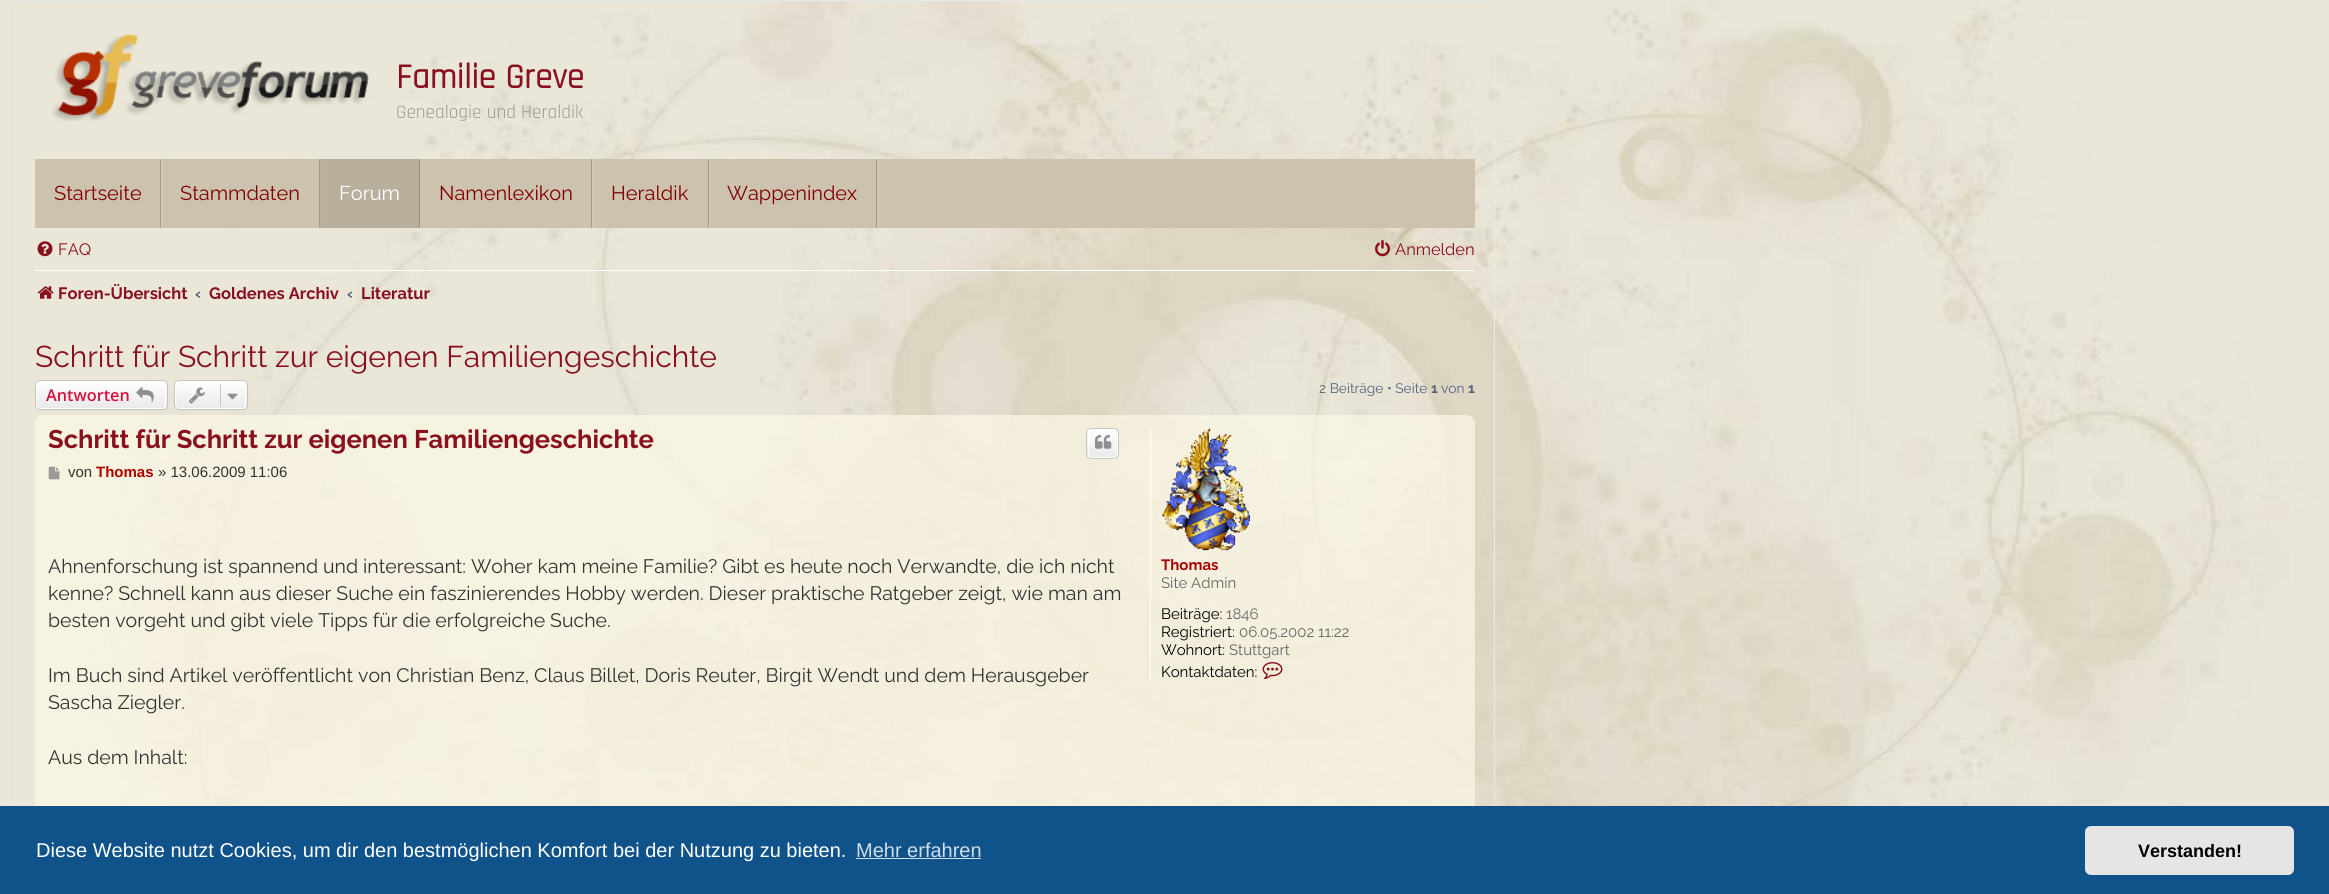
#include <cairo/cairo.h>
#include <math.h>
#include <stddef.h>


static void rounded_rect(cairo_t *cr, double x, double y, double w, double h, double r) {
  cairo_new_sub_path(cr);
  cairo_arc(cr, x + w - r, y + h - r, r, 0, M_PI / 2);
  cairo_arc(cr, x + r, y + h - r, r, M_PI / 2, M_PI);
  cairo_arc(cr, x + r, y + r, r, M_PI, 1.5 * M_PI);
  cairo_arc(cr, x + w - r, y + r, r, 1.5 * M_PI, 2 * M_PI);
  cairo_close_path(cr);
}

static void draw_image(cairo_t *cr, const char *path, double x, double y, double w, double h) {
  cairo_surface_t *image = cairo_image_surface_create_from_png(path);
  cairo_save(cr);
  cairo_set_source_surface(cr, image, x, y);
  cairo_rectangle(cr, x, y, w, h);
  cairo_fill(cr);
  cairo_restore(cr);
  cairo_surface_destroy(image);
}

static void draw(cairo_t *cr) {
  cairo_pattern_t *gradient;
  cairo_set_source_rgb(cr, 1, 1, 1);
  cairo_paint(cr);
  draw_image(cr, "images/1.png", 0, 0, 2329, 806);
  rounded_rect(cr, 15.5, 0.5, 1479, 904, 9.5);
  cairo_set_source_rgb(cr, 230 / 255.0, 233 / 255.0, 237 / 255.0);
  cairo_set_line_width(cr, 1);
  cairo_stroke(cr);
  draw_image(cr, "images/2.png", 52, 34, 317, 87);
  cairo_set_source_rgb(cr, 205 / 255.0, 194 / 255.0, 174 / 255.0);
  cairo_rectangle(cr, 35, 159, 1440, 69);
  cairo_fill(cr);
  cairo_set_source_rgb(cr, 210 / 255.0, 200 / 255.0, 182 / 255.0);
  cairo_new_path(cr);
  cairo_move_to(cr, 36, 228);
  cairo_line_to(cr, 163, 228);
  cairo_line_to(cr, 163, 159);
  cairo_line_to(cr, 161, 159);
  cairo_line_to(cr, 161, 228);
  cairo_close_path(cr);
  cairo_fill(cr);
  cairo_set_source_rgb(cr, 164 / 255.0, 155 / 255.0, 139 / 255.0);
  cairo_rectangle(cr, 160, 159, 1, 69);
  cairo_fill(cr);
  cairo_set_source_rgb(cr, 210 / 255.0, 200 / 255.0, 182 / 255.0);
  cairo_new_path(cr);
  cairo_move_to(cr, 163, 228);
  cairo_line_to(cr, 321, 228);
  cairo_line_to(cr, 321, 159);
  cairo_line_to(cr, 320, 159);
  cairo_line_to(cr, 320, 228);
  cairo_close_path(cr);
  cairo_fill(cr);
  cairo_set_source_rgb(cr, 164 / 255.0, 155 / 255.0, 139 / 255.0);
  cairo_rectangle(cr, 319, 159, 1, 69);
  cairo_fill(cr);
  cairo_set_source_rgb(cr, 210 / 255.0, 200 / 255.0, 182 / 255.0);
  cairo_new_path(cr);
  cairo_move_to(cr, 321, 228);
  cairo_line_to(cr, 421, 228);
  cairo_line_to(cr, 421, 159);
  cairo_line_to(cr, 420, 159);
  cairo_line_to(cr, 420, 228);
  cairo_close_path(cr);
  cairo_fill(cr);
  cairo_set_source_rgba(cr, 0, 0, 0, 0.1);
  cairo_rectangle(cr, 320, 159, 99, 69);
  cairo_fill(cr);
  cairo_set_source_rgb(cr, 148 / 255.0, 140 / 255.0, 125 / 255.0);
  cairo_rectangle(cr, 419, 159, 1, 69);
  cairo_fill(cr);
  cairo_set_source_rgb(cr, 210 / 255.0, 200 / 255.0, 182 / 255.0);
  cairo_new_path(cr);
  cairo_move_to(cr, 421, 228);
  cairo_line_to(cr, 594, 228);
  cairo_line_to(cr, 594, 159);
  cairo_line_to(cr, 592, 159);
  cairo_line_to(cr, 592, 228);
  cairo_close_path(cr);
  cairo_fill(cr);
  cairo_set_source_rgb(cr, 164 / 255.0, 155 / 255.0, 139 / 255.0);
  cairo_rectangle(cr, 591, 159, 1, 69);
  cairo_fill(cr);
  cairo_set_source_rgb(cr, 210 / 255.0, 200 / 255.0, 182 / 255.0);
  cairo_new_path(cr);
  cairo_move_to(cr, 594, 228);
  cairo_line_to(cr, 710, 228);
  cairo_line_to(cr, 710, 159);
  cairo_line_to(cr, 709, 159);
  cairo_line_to(cr, 709, 228);
  cairo_close_path(cr);
  cairo_fill(cr);
  cairo_set_source_rgb(cr, 164 / 255.0, 155 / 255.0, 139 / 255.0);
  cairo_rectangle(cr, 708, 159, 1, 69);
  cairo_fill(cr);
  cairo_set_source_rgb(cr, 210 / 255.0, 200 / 255.0, 182 / 255.0);
  cairo_new_path(cr);
  cairo_move_to(cr, 710, 228);
  cairo_line_to(cr, 879, 228);
  cairo_line_to(cr, 879, 159);
  cairo_line_to(cr, 878, 159);
  cairo_line_to(cr, 878, 228);
  cairo_close_path(cr);
  cairo_fill(cr);
  cairo_set_source_rgb(cr, 164 / 255.0, 155 / 255.0, 139 / 255.0);
  cairo_rectangle(cr, 876, 159, 1, 69);
  cairo_fill(cr);
  draw_image(cr, "images/3.png", 37, 241, 16, 16);
  draw_image(cr, "images/4.png", 1375, 240, 15, 17);
  cairo_set_source_rgb(cr, 1, 1, 1);
  cairo_rectangle(cr, 35, 270, 1440, 1);
  cairo_fill(cr);
  draw_image(cr, "images/5.png", 37, 286, 17, 13);
  cairo_save(cr);
  rounded_rect(cr, 35, 380, 133, 30, 5);
  cairo_clip(cr);
  gradient = cairo_pattern_create_linear(101, 381, 101, 409);
  cairo_pattern_add_color_stop_rgba(gradient, 0, 1, 1, 1, 1);
  cairo_pattern_add_color_stop_rgba(gradient, 1, 233 / 255.0, 233 / 255.0, 233 / 255.0, 1);
  cairo_set_source(cr, gradient);
  cairo_pattern_destroy(gradient);
  cairo_rectangle(cr, 35, 381, 133, 28);
  cairo_fill(cr);
  cairo_restore(cr);
  rounded_rect(cr, 36.5, 381.5, 129, 27, 3.5);
  cairo_stroke(cr);
  rounded_rect(cr, 35.5, 380.5, 132, 29, 4.5);
  cairo_set_source_rgb(cr, 199 / 255.0, 195 / 255.0, 191 / 255.0);
  cairo_stroke(cr);
  draw_image(cr, "images/6.png", 136, 387, 18, 16);
  cairo_save(cr);
  rounded_rect(cr, 174, 380, 74, 30, 5);
  cairo_clip(cr);
  gradient = cairo_pattern_create_linear(211, 381, 211, 409);
  cairo_pattern_add_color_stop_rgba(gradient, 0, 1, 1, 1, 1);
  cairo_pattern_add_color_stop_rgba(gradient, 1, 233 / 255.0, 233 / 255.0, 233 / 255.0, 1);
  cairo_set_source(cr, gradient);
  cairo_pattern_destroy(gradient);
  cairo_rectangle(cr, 174, 381, 74, 28);
  cairo_fill(cr);
  cairo_restore(cr);
  rounded_rect(cr, 175.5, 381.5, 70, 27, 3.5);
  cairo_set_source_rgb(cr, 1, 1, 1);
  cairo_stroke(cr);
  rounded_rect(cr, 174.5, 380.5, 73, 29, 4.5);
  cairo_set_source_rgb(cr, 199 / 255.0, 195 / 255.0, 191 / 255.0);
  cairo_stroke(cr);
  draw_image(cr, "images/7.png", 189, 387, 16, 17);
  cairo_rectangle(cr, 220, 384, 1, 22);
  cairo_fill(cr);
  draw_image(cr, "images/8.png", 227, 393, 11, 7);
  cairo_set_source_rgba(cr, 252 / 255.0, 248 / 255.0, 230 / 255.0, 0.7);
  rounded_rect(cr, 35, 415, 1440, 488, 9);
  cairo_fill(cr);
  cairo_save(cr);
  rounded_rect(cr, 1086, 428, 33, 31, 5);
  cairo_clip(cr);
  gradient = cairo_pattern_create_linear(1103, 429, 1103, 458);
  cairo_pattern_add_color_stop_rgba(gradient, 0, 1, 1, 1, 1);
  cairo_pattern_add_color_stop_rgba(gradient, 1, 233 / 255.0, 233 / 255.0, 233 / 255.0, 1);
  cairo_set_source(cr, gradient);
  cairo_pattern_destroy(gradient);
  cairo_rectangle(cr, 1086, 429, 33, 29);
  cairo_fill(cr);
  cairo_restore(cr);
  rounded_rect(cr, 1088.5, 429.5, 29, 28, 3.5);
  cairo_set_source_rgb(cr, 1, 1, 1);
  cairo_stroke(cr);
  rounded_rect(cr, 1086.5, 428.5, 32, 30, 4.5);
  cairo_set_source_rgb(cr, 199 / 255.0, 195 / 255.0, 191 / 255.0);
  cairo_stroke(cr);
  draw_image(cr, "images/9.png", 1095, 435, 17, 14);
  draw_image(cr, "images/10.png", 48, 466, 12, 14);
  cairo_set_source_rgb(cr, 1, 1, 1);
  cairo_rectangle(cr, 1150, 428, 1, 253);
  cairo_fill(cr);
  draw_image(cr, "images/11.png", 1162, 428, 88, 123);
  draw_image(cr, "images/12.png", 1262, 662, 21, 18);
  cairo_set_source_rgb(cr, 15 / 255.0, 83 / 255.0, 138 / 255.0);
  cairo_rectangle(cr, 0, 806, 2329, 88);
  cairo_fill(cr);
  cairo_set_source_rgb(cr, 207 / 255.0, 221 / 255.0, 232 / 255.0);
  cairo_rectangle(cr, 856, 858, 125, 1);
  cairo_fill(cr);
  cairo_set_source_rgb(cr, 229 / 255.0, 229 / 255.0, 229 / 255.0);
  rounded_rect(cr, 2085, 826, 209, 49, 6);
  cairo_fill(cr);
  cairo_select_font_face(cr, "Rajdhani", CAIRO_FONT_SLANT_NORMAL, CAIRO_FONT_WEIGHT_BOLD);
  cairo_set_font_size(cr, 35);
  cairo_set_source_rgb(cr, 138 / 255.0, 16 / 255.0, 30 / 255.0);
  cairo_move_to(cr, 396, 88);
  cairo_show_text(cr, "Familie Greve");
  cairo_select_font_face(cr, "Rajdhani", CAIRO_FONT_SLANT_NORMAL, CAIRO_FONT_WEIGHT_NORMAL);
  cairo_set_font_size(cr, 19.25);
  cairo_set_source_rgb(cr, 153 / 255.0, 153 / 255.0, 153 / 255.0);
  cairo_move_to(cr, 396, 118);
  cairo_show_text(cr, "Genealogie und Heraldik");
  cairo_select_font_face(cr, "Raleway", CAIRO_FONT_SLANT_NORMAL, CAIRO_FONT_WEIGHT_NORMAL);
  cairo_set_font_size(cr, 20);
  cairo_set_source_rgb(cr, 128 / 255.0, 0, 0);
  cairo_move_to(cr, 54, 200);
  cairo_show_text(cr, "Startseite");
  cairo_move_to(cr, 180, 200);
  cairo_show_text(cr, "Stammdaten");
  cairo_set_source_rgb(cr, 1, 1, 1);
  cairo_move_to(cr, 339, 200);
  cairo_show_text(cr, "Forum");
  cairo_set_source_rgb(cr, 128 / 255.0, 0, 0);
  cairo_move_to(cr, 439, 200);
  cairo_show_text(cr, "Namenlexikon");
  cairo_move_to(cr, 611, 200);
  cairo_show_text(cr, "Heraldik");
  cairo_move_to(cr, 727, 200);
  cairo_show_text(cr, "Wappenindex");
  cairo_set_font_size(cr, 16.5);
  cairo_set_source_rgb(cr, 138 / 255.0, 16 / 255.0, 30 / 255.0);
  cairo_move_to(cr, 58, 255);
  cairo_show_text(cr, "FAQ");
  cairo_move_to(cr, 1395, 255);
  cairo_show_text(cr, "Anmelden");
  cairo_select_font_face(cr, "Raleway", CAIRO_FONT_SLANT_NORMAL, CAIRO_FONT_WEIGHT_BOLD);
  cairo_move_to(cr, 58, 299);
  cairo_show_text(cr, "Foren-Übersicht");
  cairo_set_source_rgb(cr, 83 / 255.0, 100 / 255.0, 130 / 255.0);
  cairo_move_to(cr, 195, 299);
  cairo_show_text(cr, "‹");
  cairo_set_source_rgb(cr, 138 / 255.0, 16 / 255.0, 30 / 255.0);
  cairo_move_to(cr, 209, 299);
  cairo_show_text(cr, "Goldenes Archiv");
  cairo_set_source_rgb(cr, 83 / 255.0, 100 / 255.0, 130 / 255.0);
  cairo_move_to(cr, 347, 299);
  cairo_show_text(cr, "‹");
  cairo_set_source_rgb(cr, 138 / 255.0, 16 / 255.0, 30 / 255.0);
  cairo_move_to(cr, 361, 299);
  cairo_show_text(cr, "Literatur");
  cairo_select_font_face(cr, "Raleway", CAIRO_FONT_SLANT_NORMAL, CAIRO_FONT_WEIGHT_NORMAL);
  cairo_set_font_size(cr, 30);
  cairo_move_to(cr, 35, 367);
  cairo_show_text(cr, "Schritt für Schritt zur eigenen Familiengeschichte");
  cairo_select_font_face(cr, "Open Sans SemiBold", CAIRO_FONT_SLANT_NORMAL, CAIRO_FONT_WEIGHT_NORMAL);
  cairo_set_font_size(cr, 16.25);
  cairo_set_source_rgb(cr, 211 / 255.0, 17 / 255.0, 65 / 255.0);
  cairo_move_to(cr, 46, 401);
  cairo_show_text(cr, "Antworten");
  cairo_select_font_face(cr, "Raleway", CAIRO_FONT_SLANT_NORMAL, CAIRO_FONT_WEIGHT_NORMAL);
  cairo_set_font_size(cr, 13.75);
  cairo_set_source_rgb(cr, 83 / 255.0, 100 / 255.0, 130 / 255.0);
  cairo_move_to(cr, 1319, 393);
  cairo_show_text(cr, "2 Beiträge • Seite");
  cairo_select_font_face(cr, "Raleway", CAIRO_FONT_SLANT_NORMAL, CAIRO_FONT_WEIGHT_BOLD);
  cairo_move_to(cr, 1431, 393);
  cairo_show_text(cr, "1");
  cairo_select_font_face(cr, "Raleway", CAIRO_FONT_SLANT_NORMAL, CAIRO_FONT_WEIGHT_NORMAL);
  cairo_move_to(cr, 1441, 393);
  cairo_show_text(cr, "von");
  cairo_select_font_face(cr, "Raleway", CAIRO_FONT_SLANT_NORMAL, CAIRO_FONT_WEIGHT_BOLD);
  cairo_move_to(cr, 1468, 393);
  cairo_show_text(cr, "1");
  cairo_set_font_size(cr, 25.5);
  cairo_set_source_rgb(cr, 138 / 255.0, 16 / 255.0, 30 / 255.0);
  cairo_move_to(cr, 48, 448);
  cairo_show_text(cr, "Schritt für Schritt zur eigenen Familiengeschichte");
  cairo_select_font_face(cr, "Liberation Sans", CAIRO_FONT_SLANT_NORMAL, CAIRO_FONT_WEIGHT_NORMAL);
  cairo_set_font_size(cr, 15);
  cairo_set_source_rgb(cr, 51 / 255.0, 51 / 255.0, 51 / 255.0);
  cairo_move_to(cr, 68, 477);
  cairo_show_text(cr, "von");
  cairo_select_font_face(cr, "Liberation Sans", CAIRO_FONT_SLANT_NORMAL, CAIRO_FONT_WEIGHT_BOLD);
  cairo_set_source_rgb(cr, 170 / 255.0, 0, 0);
  cairo_move_to(cr, 96, 477);
  cairo_show_text(cr, "Thomas");
  cairo_select_font_face(cr, "Liberation Sans", CAIRO_FONT_SLANT_NORMAL, CAIRO_FONT_WEIGHT_NORMAL);
  cairo_set_source_rgb(cr, 51 / 255.0, 51 / 255.0, 51 / 255.0);
  cairo_move_to(cr, 158, 477);
  cairo_show_text(cr, "» 13.06.2009 11:06");
  cairo_select_font_face(cr, "Raleway", CAIRO_FONT_SLANT_NORMAL, CAIRO_FONT_WEIGHT_NORMAL);
  cairo_set_font_size(cr, 19.5);
  cairo_move_to(cr, 48, 573);
  cairo_show_text(cr, "Ahnenforschung ist spannend und interessant: Woher kam meine Familie? Gibt es heute noch Verwandte, die ich nicht");
  cairo_move_to(cr, 48, 600);
  cairo_show_text(cr, "kenne? Schnell kann aus dieser Suche ein faszinierendes Hobby werden. Dieser praktische Ratgeber zeigt, wie man am");
  cairo_move_to(cr, 48, 627);
  cairo_show_text(cr, "besten vorgeht und gibt viele Tipps für die erfolgreiche Suche.");
  cairo_move_to(cr, 48, 682);
  cairo_show_text(cr, "Im Buch sind Artikel veröffentlicht von Christian Benz, Claus Billet, Doris Reuter, Birgit Wendt und dem Herausgeber");
  cairo_move_to(cr, 48, 709);
  cairo_show_text(cr, "Sascha Ziegler.");
  cairo_move_to(cr, 48, 764);
  cairo_show_text(cr, "Aus dem Inhalt:");
  cairo_select_font_face(cr, "Raleway", CAIRO_FONT_SLANT_NORMAL, CAIRO_FONT_WEIGHT_BOLD);
  cairo_set_font_size(cr, 15);
  cairo_set_source_rgb(cr, 170 / 255.0, 0, 0);
  cairo_move_to(cr, 1161, 570);
  cairo_show_text(cr, "Thomas");
  cairo_select_font_face(cr, "Raleway", CAIRO_FONT_SLANT_NORMAL, CAIRO_FONT_WEIGHT_NORMAL);
  cairo_set_source_rgb(cr, 102 / 255.0, 102 / 255.0, 102 / 255.0);
  cairo_move_to(cr, 1161, 588);
  cairo_show_text(cr, "Site Admin");
  cairo_set_source_rgb(cr, 0, 0, 0);
  cairo_move_to(cr, 1161, 619);
  cairo_show_text(cr, "Beiträge:");
  cairo_set_source_rgb(cr, 102 / 255.0, 102 / 255.0, 102 / 255.0);
  cairo_move_to(cr, 1226, 619);
  cairo_show_text(cr, "1846");
  cairo_set_source_rgb(cr, 0, 0, 0);
  cairo_move_to(cr, 1161, 637);
  cairo_show_text(cr, "Registriert:");
  cairo_set_source_rgb(cr, 102 / 255.0, 102 / 255.0, 102 / 255.0);
  cairo_move_to(cr, 1239, 637);
  cairo_show_text(cr, "06.05.2002 11:22");
  cairo_set_source_rgb(cr, 0, 0, 0);
  cairo_move_to(cr, 1161, 655);
  cairo_show_text(cr, "Wohnort:");
  cairo_set_source_rgb(cr, 102 / 255.0, 102 / 255.0, 102 / 255.0);
  cairo_move_to(cr, 1229, 655);
  cairo_show_text(cr, "Stuttgart");
  cairo_set_source_rgb(cr, 0, 0, 0);
  cairo_move_to(cr, 1161, 677);
  cairo_show_text(cr, "Kontaktdaten:");
  cairo_select_font_face(cr, "Liberation Sans", CAIRO_FONT_SLANT_NORMAL, CAIRO_FONT_WEIGHT_NORMAL);
  cairo_set_font_size(cr, 20);
  cairo_set_source_rgb(cr, 1, 1, 1);
  cairo_move_to(cr, 36, 857);
  cairo_show_text(cr, "Diese Website nutzt Cookies, um dir den bestmöglichen Komfort bei der Nutzung zu bieten.");
  cairo_set_source_rgb(cr, 207 / 255.0, 221 / 255.0, 232 / 255.0);
  cairo_move_to(cr, 856, 857);
  cairo_show_text(cr, "Mehr erfahren");
  cairo_select_font_face(cr, "Liberation Sans", CAIRO_FONT_SLANT_NORMAL, CAIRO_FONT_WEIGHT_BOLD);
  cairo_set_font_size(cr, 18);
  cairo_set_source_rgb(cr, 0, 0, 0);
  cairo_move_to(cr, 2138, 857);
  cairo_show_text(cr, "Verstanden!");
}

int main(void) {
  cairo_surface_t *surface = cairo_image_surface_create(CAIRO_FORMAT_RGB24, 2329, 894);
  cairo_t *cr = cairo_create(surface);
  cairo_font_options_t *options = cairo_font_options_create();
  cairo_font_options_set_hint_metrics(options, CAIRO_HINT_METRICS_OFF);
  cairo_font_options_set_hint_style(options, CAIRO_HINT_STYLE_NONE);
  cairo_set_font_options(cr, options);
  cairo_set_miter_limit(cr, 4);
  draw(cr);
  cairo_surface_write_to_png(surface, "out.png");
  cairo_font_options_destroy(options);
  cairo_destroy(cr);
  cairo_surface_destroy(surface);
  return 0;
}
